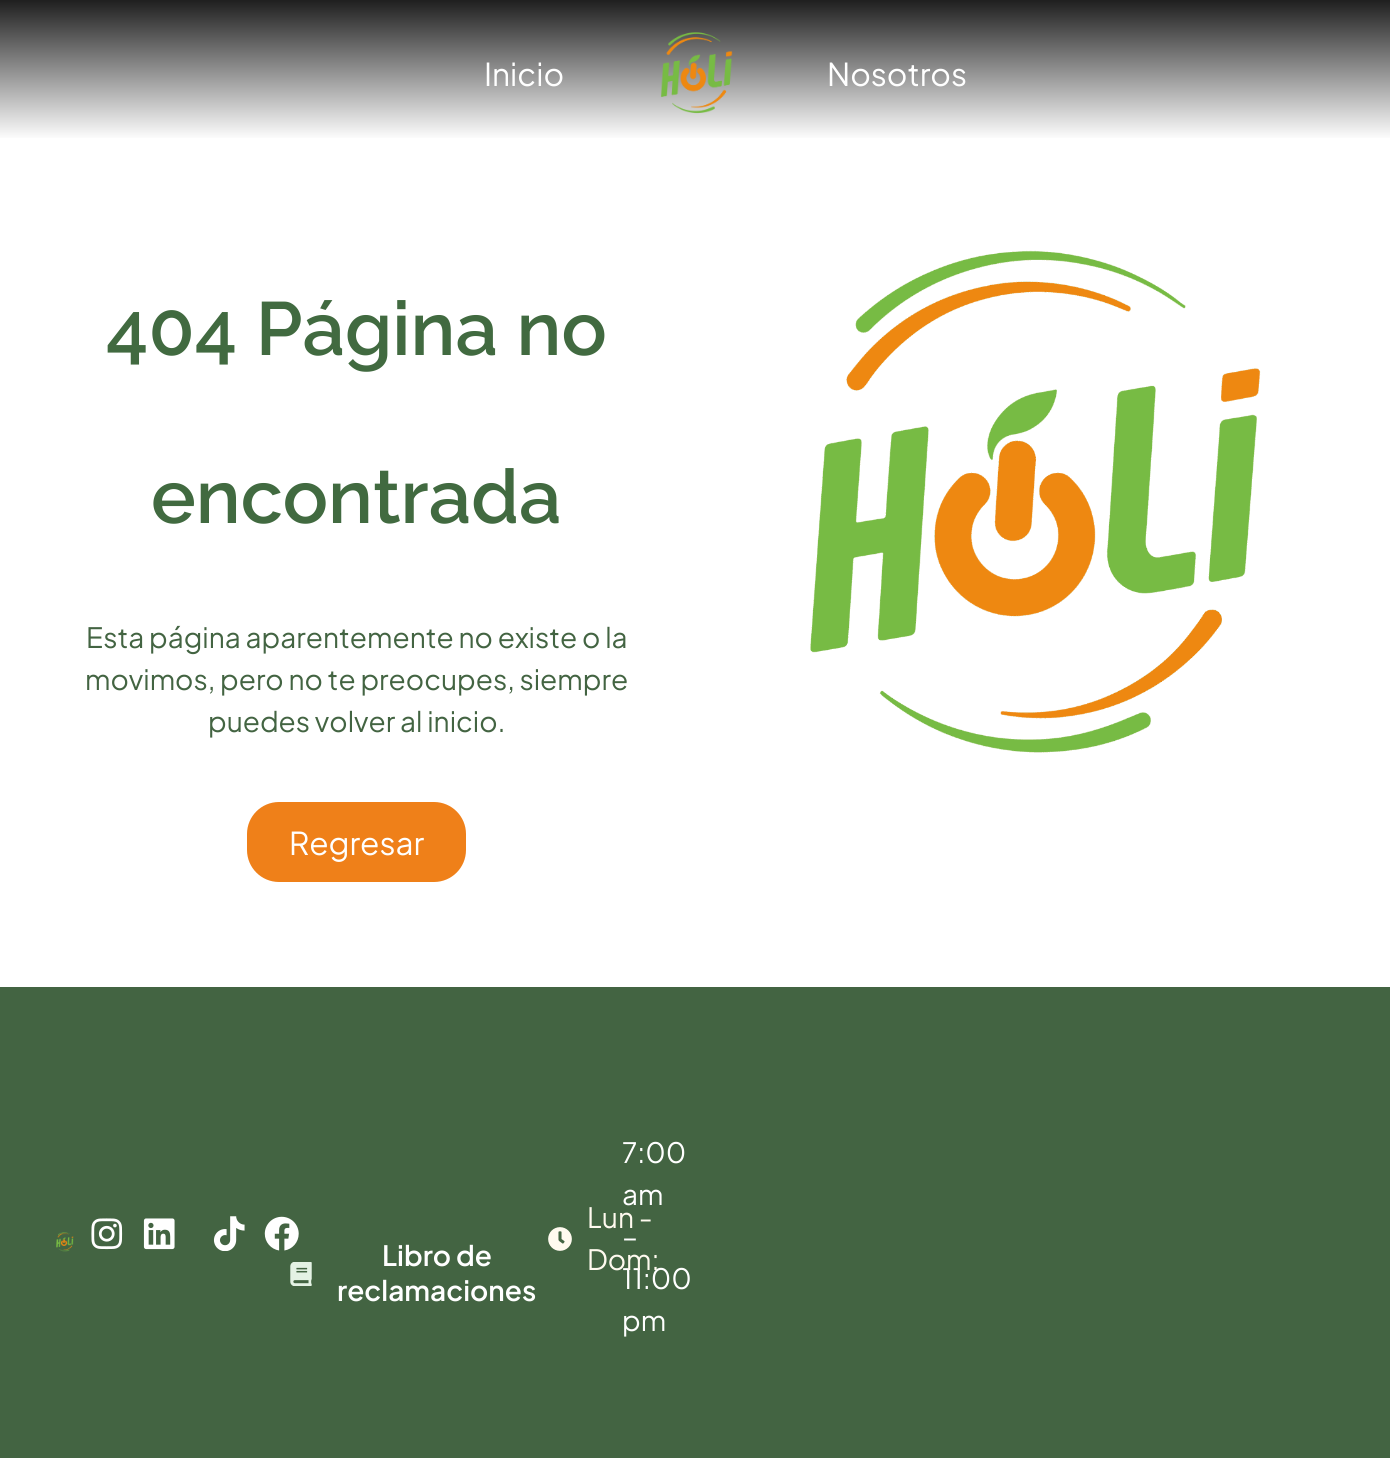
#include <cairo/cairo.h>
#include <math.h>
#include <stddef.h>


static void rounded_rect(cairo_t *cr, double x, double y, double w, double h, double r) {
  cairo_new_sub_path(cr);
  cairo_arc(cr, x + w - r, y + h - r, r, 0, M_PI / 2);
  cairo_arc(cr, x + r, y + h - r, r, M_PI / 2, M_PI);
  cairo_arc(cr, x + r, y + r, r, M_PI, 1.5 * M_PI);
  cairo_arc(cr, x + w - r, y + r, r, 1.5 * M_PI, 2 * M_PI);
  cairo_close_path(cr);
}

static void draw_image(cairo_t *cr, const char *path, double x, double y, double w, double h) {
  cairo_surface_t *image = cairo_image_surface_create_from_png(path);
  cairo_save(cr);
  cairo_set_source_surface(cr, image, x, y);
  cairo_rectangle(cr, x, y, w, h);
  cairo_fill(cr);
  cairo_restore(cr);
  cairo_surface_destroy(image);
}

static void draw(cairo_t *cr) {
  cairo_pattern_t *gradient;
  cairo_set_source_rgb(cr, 1, 1, 1);
  cairo_paint(cr);
  gradient = cairo_pattern_create_linear(696, 0, 696, 140);
  cairo_pattern_add_color_stop_rgba(gradient, 0, 31 / 255.0, 31 / 255.0, 31 / 255.0, 1);
  cairo_pattern_add_color_stop_rgba(gradient, 1, 1, 1, 1, 1);
  cairo_set_source(cr, gradient);
  cairo_pattern_destroy(gradient);
  cairo_rectangle(cr, 0, 0, 1390, 138);
  cairo_fill(cr);
  draw_image(cr, "images/1.png", 660, 32, 73, 82);
  cairo_set_source_rgb(cr, 239 / 255.0, 128 / 255.0, 25 / 255.0);
  rounded_rect(cr, 247, 802, 219, 80, 32);
  cairo_fill(cr);
  draw_image(cr, "images/2.png", 810, 250, 451, 503);
  cairo_set_source_rgb(cr, 67 / 255.0, 100 / 255.0, 66 / 255.0);
  cairo_rectangle(cr, 0, 987, 1390, 471);
  cairo_fill(cr);
  draw_image(cr, "images/3.png", 56, 1232, 18, 20);
  draw_image(cr, "images/4.png", 91, 1218, 32, 32);
  draw_image(cr, "images/5.png", 143, 1218, 32, 32);
  draw_image(cr, "images/6.png", 213, 1216, 32, 35);
  draw_image(cr, "images/7.png", 264, 1216, 35, 35);
  draw_image(cr, "images/8.png", 548, 1227, 24, 24);
  draw_image(cr, "images/9.png", 290, 1262, 22, 24);
  cairo_select_font_face(cr, "Plus Jakarta Sans", CAIRO_FONT_SLANT_NORMAL, CAIRO_FONT_WEIGHT_NORMAL);
  cairo_set_font_size(cr, 31.5);
  cairo_set_source_rgb(cr, 1, 1, 1);
  cairo_move_to(cr, 484, 86);
  cairo_show_text(cr, "Inicio");
  cairo_move_to(cr, 827, 86);
  cairo_show_text(cr, "Nosotros");
  cairo_select_font_face(cr, "Raleway SemiBold", CAIRO_FONT_SLANT_NORMAL, CAIRO_FONT_WEIGHT_NORMAL);
  cairo_set_font_size(cr, 75.25);
  cairo_set_source_rgb(cr, 65 / 255.0, 106 / 255.0, 64 / 255.0);
  cairo_move_to(cr, 106, 355);
  cairo_show_text(cr, "404 Página no");
  cairo_move_to(cr, 151, 523);
  cairo_show_text(cr, "encontrada");
  cairo_select_font_face(cr, "Plus Jakarta Sans", CAIRO_FONT_SLANT_NORMAL, CAIRO_FONT_WEIGHT_NORMAL);
  cairo_set_font_size(cr, 28);
  cairo_set_source_rgb(cr, 67 / 255.0, 100 / 255.0, 66 / 255.0);
  cairo_move_to(cr, 86, 648);
  cairo_show_text(cr, "Esta página aparentemente no existe o la");
  cairo_move_to(cr, 85, 690);
  cairo_show_text(cr, "movimos, pero no te preocupes, siempre");
  cairo_move_to(cr, 208, 732);
  cairo_show_text(cr, "puedes volver al inicio.");
  cairo_set_font_size(cr, 31.5);
  cairo_set_source_rgb(cr, 1, 1, 1);
  cairo_move_to(cr, 289, 855);
  cairo_show_text(cr, "Regresar");
  cairo_set_font_size(cr, 28);
  cairo_move_to(cr, 622, 1163);
  cairo_show_text(cr, "7:00");
  cairo_move_to(cr, 622, 1205);
  cairo_show_text(cr, "am");
  cairo_move_to(cr, 622, 1247);
  cairo_show_text(cr, "–");
  cairo_move_to(cr, 622, 1289);
  cairo_show_text(cr, "11:00");
  cairo_move_to(cr, 622, 1331);
  cairo_show_text(cr, "pm");
  cairo_set_source_rgb(cr, 1, 250 / 255.0, 239 / 255.0);
  cairo_move_to(cr, 587, 1228);
  cairo_show_text(cr, "Lun -");
  cairo_move_to(cr, 587, 1270);
  cairo_show_text(cr, "Dom:");
  cairo_select_font_face(cr, "Plus Jakarta Sans SemiBold", CAIRO_FONT_SLANT_NORMAL, CAIRO_FONT_WEIGHT_NORMAL);
  cairo_set_source_rgb(cr, 1, 1, 1);
  cairo_move_to(cr, 382, 1266);
  cairo_show_text(cr, "Libro de");
  cairo_move_to(cr, 337, 1301);
  cairo_show_text(cr, "reclamaciones");
}

int main(void) {
  cairo_surface_t *surface = cairo_image_surface_create(CAIRO_FORMAT_RGB24, 1390, 1458);
  cairo_t *cr = cairo_create(surface);
  cairo_font_options_t *options = cairo_font_options_create();
  cairo_font_options_set_hint_metrics(options, CAIRO_HINT_METRICS_OFF);
  cairo_font_options_set_hint_style(options, CAIRO_HINT_STYLE_NONE);
  cairo_set_font_options(cr, options);
  cairo_set_miter_limit(cr, 4);
  draw(cr);
  cairo_surface_write_to_png(surface, "out.png");
  cairo_font_options_destroy(options);
  cairo_destroy(cr);
  cairo_surface_destroy(surface);
  return 0;
}
